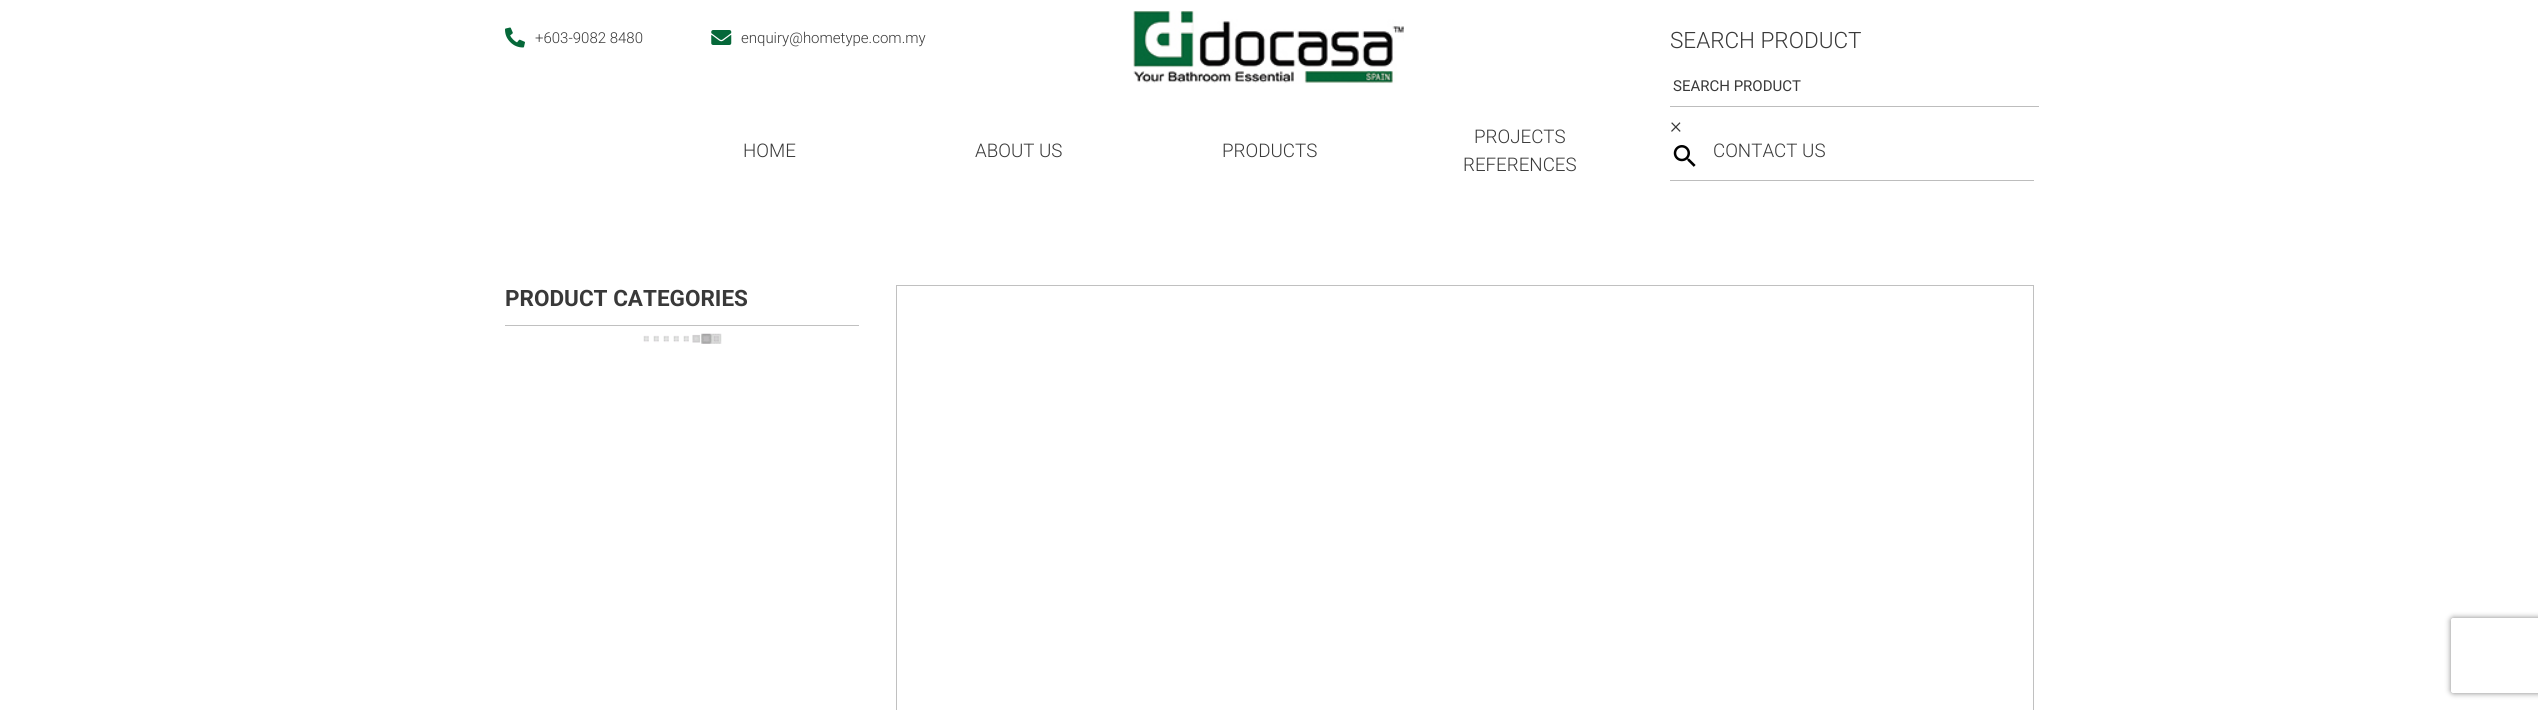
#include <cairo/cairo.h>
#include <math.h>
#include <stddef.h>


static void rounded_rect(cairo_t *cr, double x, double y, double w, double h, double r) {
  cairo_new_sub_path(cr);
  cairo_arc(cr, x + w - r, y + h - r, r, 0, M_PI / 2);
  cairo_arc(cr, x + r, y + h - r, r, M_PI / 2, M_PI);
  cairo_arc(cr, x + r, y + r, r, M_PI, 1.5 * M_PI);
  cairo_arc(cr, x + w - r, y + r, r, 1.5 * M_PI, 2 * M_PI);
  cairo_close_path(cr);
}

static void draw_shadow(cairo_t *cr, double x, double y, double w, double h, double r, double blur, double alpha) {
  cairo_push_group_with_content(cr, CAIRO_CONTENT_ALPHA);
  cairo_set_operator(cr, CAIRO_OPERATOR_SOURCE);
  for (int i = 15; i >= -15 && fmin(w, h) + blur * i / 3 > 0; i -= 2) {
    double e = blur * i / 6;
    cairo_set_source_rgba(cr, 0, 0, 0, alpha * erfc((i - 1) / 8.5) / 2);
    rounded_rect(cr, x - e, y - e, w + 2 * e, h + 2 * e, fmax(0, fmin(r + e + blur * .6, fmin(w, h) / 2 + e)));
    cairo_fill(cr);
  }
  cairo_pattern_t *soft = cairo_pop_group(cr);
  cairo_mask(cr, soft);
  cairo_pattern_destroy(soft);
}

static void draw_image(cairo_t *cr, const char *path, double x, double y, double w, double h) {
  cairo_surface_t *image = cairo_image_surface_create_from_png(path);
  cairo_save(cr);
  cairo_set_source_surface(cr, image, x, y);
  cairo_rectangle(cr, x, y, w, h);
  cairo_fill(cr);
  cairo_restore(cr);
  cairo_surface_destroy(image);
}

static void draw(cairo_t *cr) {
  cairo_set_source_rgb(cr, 1, 1, 1);
  cairo_paint(cr);
  draw_image(cr, "images/1.png", 505, 27, 20, 21);
  draw_image(cr, "images/2.png", 711, 30, 21, 15);
  draw_image(cr, "images/3.png", 1133, 10, 271, 74);
  cairo_set_source_rgb(cr, 189 / 255.0, 189 / 255.0, 189 / 255.0);
  cairo_rectangle(cr, 1670, 106, 369, 1);
  cairo_fill(cr);
  cairo_rectangle(cr, 1670, 180, 364, 1);
  cairo_fill(cr);
  draw_image(cr, "images/4.png", 1673, 145, 23, 22);
  cairo_set_source_rgb(cr, 192 / 255.0, 192 / 255.0, 192 / 255.0);
  cairo_rectangle(cr, 505, 325, 354, 1);
  cairo_fill(cr);
  draw_image(cr, "images/5.png", 643, 333, 79, 11);
  cairo_rectangle(cr, 896.5, 285.5, 1137, 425);
  cairo_set_line_width(cr, 1);
  cairo_stroke(cr);
  cairo_save(cr);
  cairo_set_fill_rule(cr, CAIRO_FILL_RULE_EVEN_ODD);
  cairo_new_path(cr);
  cairo_move_to(cr, 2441, 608);
  cairo_line_to(cr, 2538, 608);
  cairo_line_to(cr, 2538, 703);
  cairo_line_to(cr, 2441, 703);
  cairo_close_path(cr);
  cairo_move_to(cr, 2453.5, 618);
  cairo_line_to(cr, 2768.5, 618);
  cairo_curve_to(cr, 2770, 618, 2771, 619, 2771, 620.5);
  cairo_line_to(cr, 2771, 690.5);
  cairo_curve_to(cr, 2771, 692, 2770, 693, 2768.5, 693);
  cairo_line_to(cr, 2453.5, 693);
  cairo_curve_to(cr, 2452, 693, 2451, 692, 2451, 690.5);
  cairo_line_to(cr, 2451, 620.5);
  cairo_curve_to(cr, 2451, 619, 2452, 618, 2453.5, 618);
  cairo_close_path(cr);
  cairo_clip(cr);
  cairo_set_source_rgb(cr, 128 / 255.0, 128 / 255.0, 128 / 255.0);
  draw_shadow(cr, 2451, 618, 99, 75, 2.5, 3, 1);
  cairo_restore(cr);
  cairo_select_font_face(cr, "Roboto Light", CAIRO_FONT_SLANT_NORMAL, CAIRO_FONT_WEIGHT_NORMAL);
  cairo_set_font_size(cr, 15);
  cairo_set_source_rgb(cr, 57 / 255.0, 57 / 255.0, 57 / 255.0);
  cairo_move_to(cr, 535, 43);
  cairo_show_text(cr, "+603-9082 8480");
  cairo_move_to(cr, 741, 43);
  cairo_show_text(cr, "enquiry@hometype.com.my");
  cairo_set_font_size(cr, 22.5);
  cairo_move_to(cr, 1670, 48);
  cairo_show_text(cr, "SEARCH PRODUCT");
  cairo_select_font_face(cr, "Roboto", CAIRO_FONT_SLANT_NORMAL, CAIRO_FONT_WEIGHT_NORMAL);
  cairo_set_font_size(cr, 15);
  cairo_move_to(cr, 1673, 91);
  cairo_show_text(cr, "SEARCH PRODUCT");
  cairo_select_font_face(cr, "Roboto Light", CAIRO_FONT_SLANT_NORMAL, CAIRO_FONT_WEIGHT_NORMAL);
  cairo_set_font_size(cr, 22.5);
  cairo_move_to(cr, 1670, 133);
  cairo_show_text(cr, "×");
  cairo_set_font_size(cr, 18.75);
  cairo_move_to(cr, 743, 157);
  cairo_show_text(cr, "HOME");
  cairo_move_to(cr, 975, 157);
  cairo_show_text(cr, "ABOUT US");
  cairo_move_to(cr, 1222, 157);
  cairo_show_text(cr, "PRODUCTS");
  cairo_move_to(cr, 1474, 143);
  cairo_show_text(cr, "PROJECTS");
  cairo_move_to(cr, 1463, 171);
  cairo_show_text(cr, "REFERENCES");
  cairo_move_to(cr, 1713, 157);
  cairo_show_text(cr, "CONTACT US");
  cairo_select_font_face(cr, "Roboto", CAIRO_FONT_SLANT_NORMAL, CAIRO_FONT_WEIGHT_BOLD);
  cairo_set_font_size(cr, 22.5);
  cairo_move_to(cr, 505, 306);
  cairo_show_text(cr, "PRODUCT CATEGORIES");
}

int main(void) {
  cairo_surface_t *surface = cairo_image_surface_create(CAIRO_FORMAT_RGB24, 2538, 710);
  cairo_t *cr = cairo_create(surface);
  cairo_font_options_t *options = cairo_font_options_create();
  cairo_font_options_set_hint_metrics(options, CAIRO_HINT_METRICS_OFF);
  cairo_font_options_set_hint_style(options, CAIRO_HINT_STYLE_NONE);
  cairo_set_font_options(cr, options);
  cairo_set_miter_limit(cr, 4);
  draw(cr);
  cairo_surface_write_to_png(surface, "out.png");
  cairo_font_options_destroy(options);
  cairo_destroy(cr);
  cairo_surface_destroy(surface);
  return 0;
}
